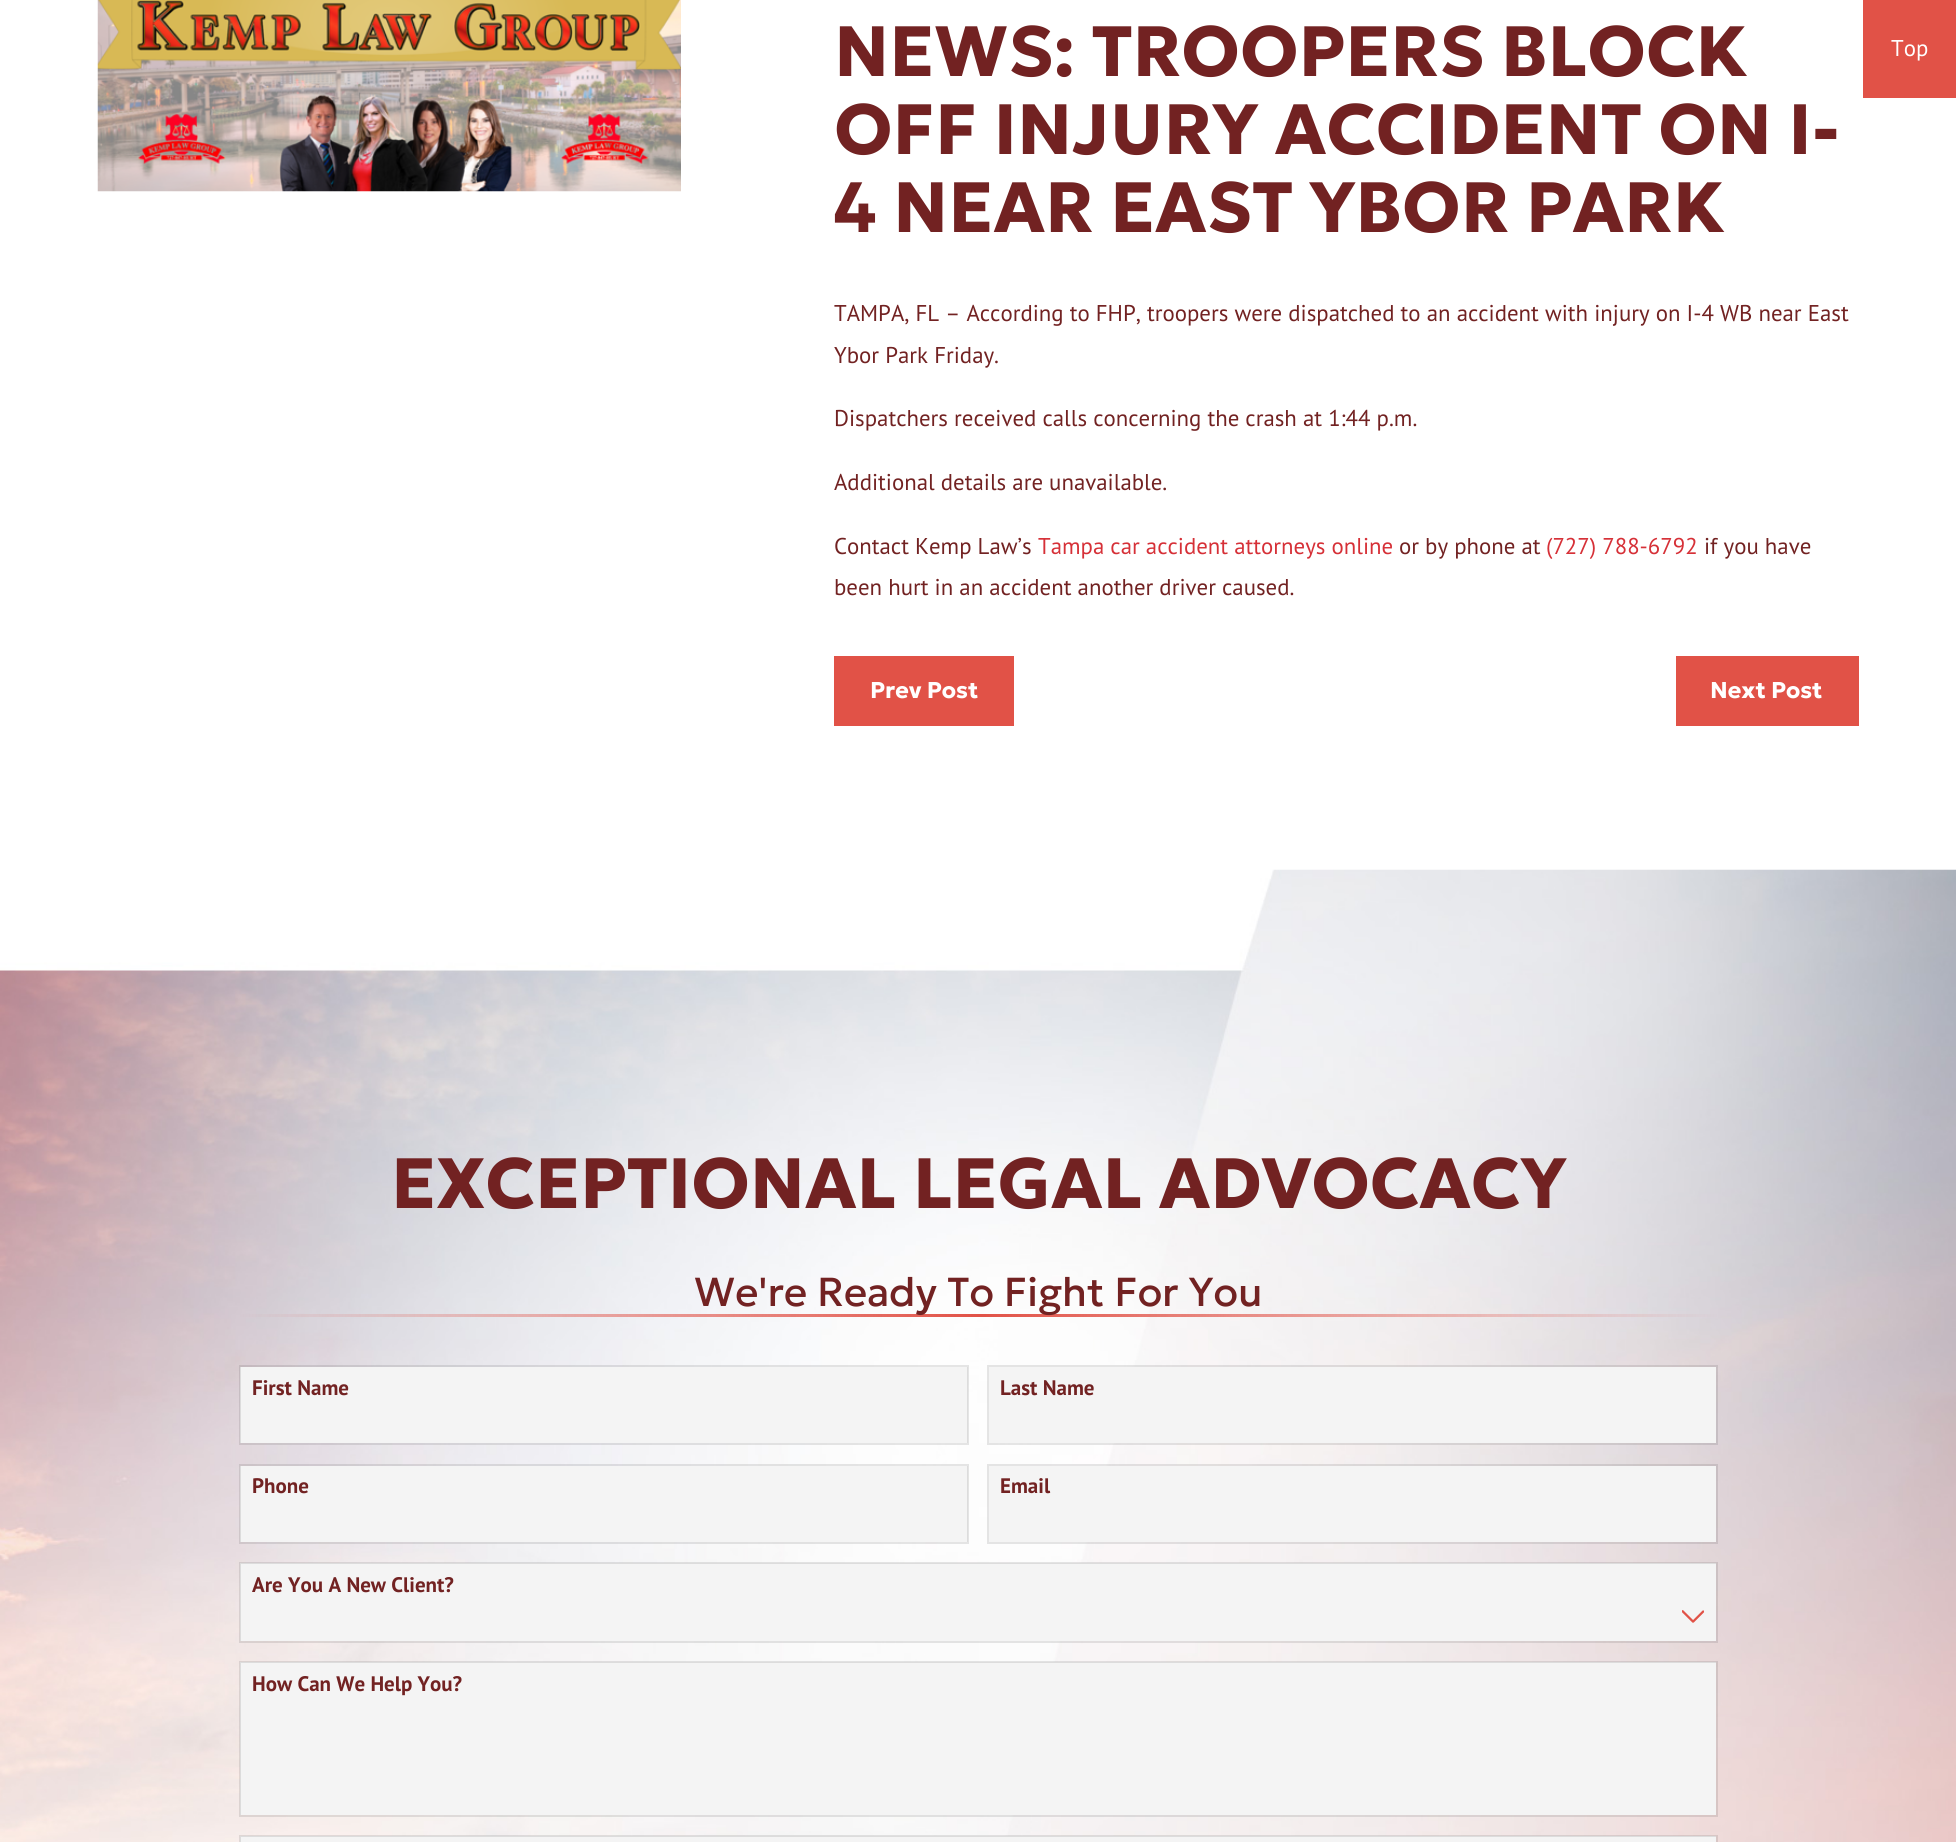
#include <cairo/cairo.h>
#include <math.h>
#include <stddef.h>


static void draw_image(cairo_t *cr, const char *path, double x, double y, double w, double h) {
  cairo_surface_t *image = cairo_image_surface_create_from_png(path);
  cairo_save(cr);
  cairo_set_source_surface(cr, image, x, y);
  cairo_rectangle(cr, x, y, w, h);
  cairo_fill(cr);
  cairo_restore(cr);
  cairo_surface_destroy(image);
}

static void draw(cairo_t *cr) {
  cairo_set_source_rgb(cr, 1, 1, 1);
  cairo_paint(cr);
  draw_image(cr, "images/1.png", 97, 0, 584, 192);
  cairo_set_source_rgb(cr, 225 / 255.0, 82 / 255.0, 71 / 255.0);
  cairo_rectangle(cr, 834, 656, 180, 70);
  cairo_fill(cr);
  cairo_rectangle(cr, 1676, 656, 183, 70);
  cairo_fill(cr);
  draw_image(cr, "images/2.png", 0, 869, 1956, 973);
  cairo_set_source_rgb(cr, 244 / 255.0, 244 / 255.0, 244 / 255.0);
  cairo_rectangle(cr, 240, 1367, 728, 76);
  cairo_fill(cr);
  cairo_rectangle(cr, 240, 1366, 728, 78);
  cairo_set_source_rgba(cr, 0, 0, 0, 0.1);
  cairo_stroke(cr);
  cairo_set_source_rgb(cr, 244 / 255.0, 244 / 255.0, 244 / 255.0);
  cairo_rectangle(cr, 989, 1367, 727, 76);
  cairo_fill(cr);
  cairo_rectangle(cr, 988, 1366, 729, 78);
  cairo_set_source_rgba(cr, 0, 0, 0, 0.1);
  cairo_stroke(cr);
  cairo_set_source_rgb(cr, 244 / 255.0, 244 / 255.0, 244 / 255.0);
  cairo_rectangle(cr, 240, 1466, 728, 76);
  cairo_fill(cr);
  cairo_rectangle(cr, 240, 1465, 728, 78);
  cairo_set_source_rgba(cr, 0, 0, 0, 0.1);
  cairo_stroke(cr);
  cairo_set_source_rgb(cr, 244 / 255.0, 244 / 255.0, 244 / 255.0);
  cairo_rectangle(cr, 989, 1466, 727, 76);
  cairo_fill(cr);
  cairo_rectangle(cr, 988, 1465, 729, 78);
  cairo_set_source_rgba(cr, 0, 0, 0, 0.1);
  cairo_stroke(cr);
  cairo_set_source_rgb(cr, 244 / 255.0, 244 / 255.0, 244 / 255.0);
  cairo_rectangle(cr, 240, 1563, 1476, 78);
  cairo_fill(cr);
  cairo_rectangle(cr, 240, 1563, 1477, 79);
  cairo_set_source_rgba(cr, 0, 0, 0, 0.1);
  cairo_stroke(cr);
  draw_image(cr, "images/3.png", 1682, 1610, 22, 13);
  cairo_set_source_rgb(cr, 244 / 255.0, 244 / 255.0, 244 / 255.0);
  cairo_rectangle(cr, 240, 1662, 1476, 153);
  cairo_fill(cr);
  cairo_rectangle(cr, 240, 1662, 1477, 154);
  cairo_set_source_rgba(cr, 0, 0, 0, 0.1);
  cairo_stroke(cr);
  cairo_set_source_rgb(cr, 244 / 255.0, 244 / 255.0, 244 / 255.0);
  cairo_rectangle(cr, 240, 1836, 1476, 6);
  cairo_fill(cr);
  cairo_rectangle(cr, 240, 1836, 1477, 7);
  cairo_set_source_rgba(cr, 0, 0, 0, 0.1);
  cairo_stroke(cr);
  cairo_set_source_rgb(cr, 225 / 255.0, 82 / 255.0, 71 / 255.0);
  cairo_rectangle(cr, 1863, 0, 93, 98);
  cairo_fill(cr);
  cairo_select_font_face(cr, "Geologica", CAIRO_FONT_SLANT_NORMAL, CAIRO_FONT_WEIGHT_BOLD);
  cairo_set_font_size(cr, 71);
  cairo_set_source_rgb(cr, 114 / 255.0, 34 / 255.0, 34 / 255.0);
  cairo_move_to(cr, 834, 76);
  cairo_show_text(cr, "NEWS: TROOPERS BLOCK");
  cairo_move_to(cr, 834, 154);
  cairo_show_text(cr, "OFF INJURY ACCIDENT ON I-");
  cairo_move_to(cr, 834, 232);
  cairo_show_text(cr, "4 NEAR EAST YBOR PARK");
  cairo_select_font_face(cr, "PT Sans", CAIRO_FONT_SLANT_NORMAL, CAIRO_FONT_WEIGHT_NORMAL);
  cairo_set_font_size(cr, 22.85);
  cairo_move_to(cr, 834, 321);
  cairo_show_text(cr, "TAMPA, FL – According to FHP, troopers were dispatched to an accident with injury on I-4 WB near East");
  cairo_move_to(cr, 834, 363);
  cairo_show_text(cr, "Ybor Park Friday.");
  cairo_move_to(cr, 834, 426);
  cairo_show_text(cr, "Dispatchers received calls concerning the crash at 1:44 p.m.");
  cairo_move_to(cr, 834, 490);
  cairo_show_text(cr, "Additional details are unavailable.");
  cairo_move_to(cr, 834, 554);
  cairo_show_text(cr, "Contact Kemp Law’s");
  cairo_set_source_rgb(cr, 214 / 255.0, 48 / 255.0, 55 / 255.0);
  cairo_move_to(cr, 1038, 554);
  cairo_show_text(cr, "Tampa car accident attorneys online");
  cairo_set_source_rgb(cr, 114 / 255.0, 34 / 255.0, 34 / 255.0);
  cairo_move_to(cr, 1399, 554);
  cairo_show_text(cr, "or by phone at");
  cairo_set_source_rgb(cr, 214 / 255.0, 48 / 255.0, 55 / 255.0);
  cairo_move_to(cr, 1546, 554);
  cairo_show_text(cr, "(727) 788-6792");
  cairo_set_source_rgb(cr, 114 / 255.0, 34 / 255.0, 34 / 255.0);
  cairo_move_to(cr, 1704, 554);
  cairo_show_text(cr, "if you have");
  cairo_move_to(cr, 834, 595);
  cairo_show_text(cr, "been hurt in an accident another driver caused.");
  cairo_select_font_face(cr, "Geologica", CAIRO_FONT_SLANT_NORMAL, CAIRO_FONT_WEIGHT_BOLD);
  cairo_set_source_rgb(cr, 1, 1, 1);
  cairo_move_to(cr, 870, 698);
  cairo_show_text(cr, "Prev Post");
  cairo_move_to(cr, 1710, 698);
  cairo_show_text(cr, "Next Post");
  cairo_set_font_size(cr, 71);
  cairo_set_source_rgb(cr, 114 / 255.0, 34 / 255.0, 34 / 255.0);
  cairo_move_to(cr, 391, 1208);
  cairo_show_text(cr, "EXCEPTIONAL LEGAL ADVOCACY");
  cairo_select_font_face(cr, "Geologica", CAIRO_FONT_SLANT_NORMAL, CAIRO_FONT_WEIGHT_NORMAL);
  cairo_set_font_size(cr, 40.4);
  cairo_move_to(cr, 694, 1306);
  cairo_show_text(cr, "We're Ready To Fight For You");
  cairo_select_font_face(cr, "PT Sans", CAIRO_FONT_SLANT_NORMAL, CAIRO_FONT_WEIGHT_BOLD);
  cairo_set_font_size(cr, 21);
  cairo_move_to(cr, 252, 1395);
  cairo_show_text(cr, "First Name");
  cairo_move_to(cr, 1000, 1395);
  cairo_show_text(cr, "Last Name");
  cairo_move_to(cr, 252, 1493);
  cairo_show_text(cr, "Phone");
  cairo_move_to(cr, 1000, 1493);
  cairo_show_text(cr, "Email");
  cairo_move_to(cr, 252, 1592);
  cairo_show_text(cr, "Are You A New Client?");
  cairo_move_to(cr, 252, 1691);
  cairo_show_text(cr, "How Can We Help You?");
  cairo_select_font_face(cr, "PT Sans", CAIRO_FONT_SLANT_NORMAL, CAIRO_FONT_WEIGHT_NORMAL);
  cairo_set_font_size(cr, 22.85);
  cairo_set_source_rgb(cr, 1, 1, 1);
  cairo_move_to(cr, 1891, 56);
  cairo_show_text(cr, "Top");
}

int main(void) {
  cairo_surface_t *surface = cairo_image_surface_create(CAIRO_FORMAT_RGB24, 1956, 1842);
  cairo_t *cr = cairo_create(surface);
  cairo_font_options_t *options = cairo_font_options_create();
  cairo_font_options_set_hint_metrics(options, CAIRO_HINT_METRICS_OFF);
  cairo_font_options_set_hint_style(options, CAIRO_HINT_STYLE_NONE);
  cairo_set_font_options(cr, options);
  cairo_set_miter_limit(cr, 4);
  draw(cr);
  cairo_surface_write_to_png(surface, "out.png");
  cairo_font_options_destroy(options);
  cairo_destroy(cr);
  cairo_surface_destroy(surface);
  return 0;
}
